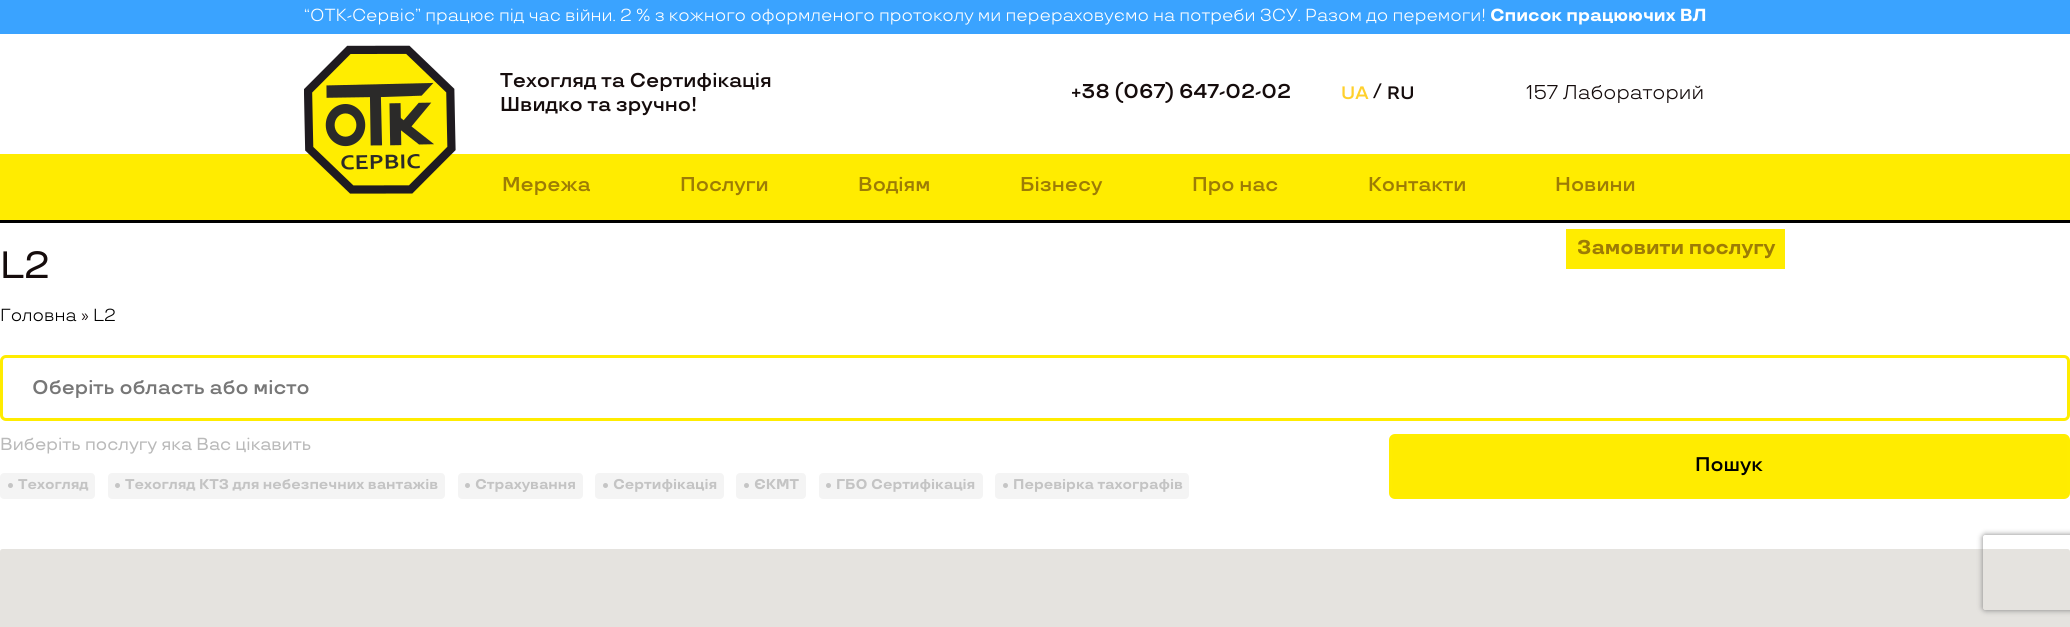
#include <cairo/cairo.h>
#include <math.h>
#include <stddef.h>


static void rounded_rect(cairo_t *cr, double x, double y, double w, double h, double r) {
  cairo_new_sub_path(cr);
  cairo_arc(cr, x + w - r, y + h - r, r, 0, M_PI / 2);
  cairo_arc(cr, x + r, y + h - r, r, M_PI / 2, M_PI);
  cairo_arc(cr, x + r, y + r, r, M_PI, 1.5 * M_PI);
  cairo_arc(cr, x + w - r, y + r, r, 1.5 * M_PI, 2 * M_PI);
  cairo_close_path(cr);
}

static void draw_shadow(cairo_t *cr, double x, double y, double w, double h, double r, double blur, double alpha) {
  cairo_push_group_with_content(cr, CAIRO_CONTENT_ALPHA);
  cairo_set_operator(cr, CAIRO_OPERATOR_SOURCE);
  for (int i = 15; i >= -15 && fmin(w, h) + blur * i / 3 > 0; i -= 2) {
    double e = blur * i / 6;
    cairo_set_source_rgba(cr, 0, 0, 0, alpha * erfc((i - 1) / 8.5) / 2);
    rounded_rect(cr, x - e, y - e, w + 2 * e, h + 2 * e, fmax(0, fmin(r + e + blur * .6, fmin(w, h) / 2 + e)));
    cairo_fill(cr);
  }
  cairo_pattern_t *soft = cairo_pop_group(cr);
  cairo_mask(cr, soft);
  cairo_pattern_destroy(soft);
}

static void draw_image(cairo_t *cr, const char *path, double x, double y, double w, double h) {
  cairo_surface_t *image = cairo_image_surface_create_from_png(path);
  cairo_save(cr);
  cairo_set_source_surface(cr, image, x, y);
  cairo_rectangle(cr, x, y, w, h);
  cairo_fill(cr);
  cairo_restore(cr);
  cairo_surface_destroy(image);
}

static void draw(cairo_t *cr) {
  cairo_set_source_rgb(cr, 1, 1, 1);
  cairo_paint(cr);
  cairo_set_source_rgb(cr, 58 / 255.0, 163 / 255.0, 1);
  cairo_rectangle(cr, 0, 0, 2070, 34);
  cairo_fill(cr);
  cairo_set_source_rgb(cr, 1, 236 / 255.0, 0);
  cairo_rectangle(cr, 0, 154, 2070, 66);
  cairo_fill(cr);
  draw_image(cr, "images/1.png", 304, 45, 152, 149);
  cairo_set_source_rgb(cr, 0, 0, 0);
  cairo_rectangle(cr, 0, 220, 2070, 3);
  cairo_fill(cr);
  cairo_set_source_rgb(cr, 1, 236 / 255.0, 0);
  cairo_rectangle(cr, 1566, 229, 219, 40);
  cairo_fill(cr);
  rounded_rect(cr, 1.5, 356.5, 2067, 63, 4.5);
  cairo_set_line_width(cr, 3);
  cairo_stroke(cr);
  cairo_set_source_rgb(cr, 244 / 255.0, 244 / 255.0, 244 / 255.0);
  rounded_rect(cr, 0, 473, 95, 26, 4);
  cairo_fill(cr);
  cairo_set_source_rgb(cr, 197 / 255.0, 197 / 255.0, 197 / 255.0);
  cairo_arc(cr, 10.5, 485.5, 2.5, 0, 2 * M_PI);
  cairo_fill(cr);
  cairo_set_source_rgb(cr, 244 / 255.0, 244 / 255.0, 244 / 255.0);
  rounded_rect(cr, 108, 473, 337, 26, 4);
  cairo_fill(cr);
  cairo_set_source_rgb(cr, 197 / 255.0, 197 / 255.0, 197 / 255.0);
  cairo_arc(cr, 117.5, 485.5, 2.5, 0, 2 * M_PI);
  cairo_fill(cr);
  cairo_set_source_rgb(cr, 244 / 255.0, 244 / 255.0, 244 / 255.0);
  rounded_rect(cr, 458, 473, 125, 26, 4);
  cairo_fill(cr);
  cairo_set_source_rgb(cr, 197 / 255.0, 197 / 255.0, 197 / 255.0);
  cairo_arc(cr, 467.5, 485.5, 2.5, 0, 2 * M_PI);
  cairo_fill(cr);
  cairo_set_source_rgb(cr, 244 / 255.0, 244 / 255.0, 244 / 255.0);
  rounded_rect(cr, 595, 473, 129, 26, 4);
  cairo_fill(cr);
  cairo_set_source_rgb(cr, 197 / 255.0, 197 / 255.0, 197 / 255.0);
  cairo_arc(cr, 605.5, 485.5, 2.5, 0, 2 * M_PI);
  cairo_fill(cr);
  cairo_set_source_rgb(cr, 244 / 255.0, 244 / 255.0, 244 / 255.0);
  rounded_rect(cr, 736, 473, 70, 26, 4);
  cairo_fill(cr);
  cairo_set_source_rgb(cr, 197 / 255.0, 197 / 255.0, 197 / 255.0);
  cairo_arc(cr, 746.5, 485.5, 2.5, 0, 2 * M_PI);
  cairo_fill(cr);
  cairo_set_source_rgb(cr, 244 / 255.0, 244 / 255.0, 244 / 255.0);
  rounded_rect(cr, 819, 473, 164, 26, 4);
  cairo_fill(cr);
  cairo_set_source_rgb(cr, 197 / 255.0, 197 / 255.0, 197 / 255.0);
  cairo_arc(cr, 828.5, 485.5, 2.5, 0, 2 * M_PI);
  cairo_fill(cr);
  cairo_set_source_rgb(cr, 244 / 255.0, 244 / 255.0, 244 / 255.0);
  rounded_rect(cr, 995, 473, 194, 26, 4);
  cairo_fill(cr);
  cairo_set_source_rgb(cr, 197 / 255.0, 197 / 255.0, 197 / 255.0);
  cairo_arc(cr, 1005.5, 485.5, 2.5, 0, 2 * M_PI);
  cairo_fill(cr);
  cairo_set_source_rgb(cr, 1, 236 / 255.0, 0);
  rounded_rect(cr, 1390.5, 435.5, 678, 62, 4.5);
  cairo_fill_preserve(cr);
  cairo_set_source_rgb(cr, 1, 237 / 255.0, 0);
  cairo_stroke(cr);
  cairo_set_source_rgb(cr, 229 / 255.0, 227 / 255.0, 223 / 255.0);
  rounded_rect(cr, 0, 549, 2070, 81, 2.5);
  cairo_fill(cr);
  cairo_save(cr);
  cairo_set_fill_rule(cr, CAIRO_FILL_RULE_EVEN_ODD);
  cairo_new_path(cr);
  cairo_move_to(cr, 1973, 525);
  cairo_line_to(cr, 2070, 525);
  cairo_line_to(cr, 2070, 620);
  cairo_line_to(cr, 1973, 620);
  cairo_close_path(cr);
  cairo_move_to(cr, 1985.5, 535);
  cairo_line_to(cr, 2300.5, 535);
  cairo_curve_to(cr, 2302, 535, 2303, 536, 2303, 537.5);
  cairo_line_to(cr, 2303, 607.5);
  cairo_curve_to(cr, 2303, 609, 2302, 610, 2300.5, 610);
  cairo_line_to(cr, 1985.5, 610);
  cairo_curve_to(cr, 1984, 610, 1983, 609, 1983, 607.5);
  cairo_line_to(cr, 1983, 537.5);
  cairo_curve_to(cr, 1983, 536, 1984, 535, 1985.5, 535);
  cairo_close_path(cr);
  cairo_clip(cr);
  cairo_set_source_rgb(cr, 128 / 255.0, 128 / 255.0, 128 / 255.0);
  draw_shadow(cr, 1983, 535, 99, 75, 2.5, 3, 1);
  cairo_restore(cr);
  cairo_select_font_face(cr, "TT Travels", CAIRO_FONT_SLANT_NORMAL, CAIRO_FONT_WEIGHT_NORMAL);
  cairo_set_font_size(cr, 17.5);
  cairo_set_source_rgb(cr, 1, 1, 1);
  cairo_move_to(cr, 304, 21);
  cairo_show_text(cr, "“ОТК-Сервіс” працює під час війни. 2 % з кожного оформленого протоколу ми перераховуємо на потреби ЗСУ. Разом до перемоги!");
  cairo_select_font_face(cr, "TT Travels", CAIRO_FONT_SLANT_NORMAL, CAIRO_FONT_WEIGHT_BOLD);
  cairo_move_to(cr, 1490, 21);
  cairo_show_text(cr, "Список працюючих ВЛ");
  cairo_select_font_face(cr, "TT Travels SemiBold", CAIRO_FONT_SLANT_NORMAL, CAIRO_FONT_WEIGHT_NORMAL);
  cairo_set_font_size(cr, 20);
  cairo_set_source_rgb(cr, 21 / 255.0, 12 / 255.0, 12 / 255.0);
  cairo_move_to(cr, 500, 87);
  cairo_show_text(cr, "Техогляд та Сертифікація");
  cairo_move_to(cr, 500, 111);
  cairo_show_text(cr, "Швидко та зручно!");
  cairo_move_to(cr, 1071, 98);
  cairo_show_text(cr, "+38 (067) 647-02-02");
  cairo_set_font_size(cr, 18);
  cairo_set_source_rgb(cr, 1, 208 / 255.0, 44 / 255.0);
  cairo_move_to(cr, 1341, 99);
  cairo_show_text(cr, "UA");
  cairo_set_source_rgb(cr, 21 / 255.0, 12 / 255.0, 12 / 255.0);
  cairo_move_to(cr, 1373, 96);
  cairo_show_text(cr, "/");
  cairo_move_to(cr, 1387, 99);
  cairo_show_text(cr, "RU");
  cairo_select_font_face(cr, "TT Travels", CAIRO_FONT_SLANT_NORMAL, CAIRO_FONT_WEIGHT_NORMAL);
  cairo_set_font_size(cr, 20);
  cairo_move_to(cr, 1526, 99);
  cairo_show_text(cr, "157 Лабораторий");
  cairo_select_font_face(cr, "TT Travels SemiBold", CAIRO_FONT_SLANT_NORMAL, CAIRO_FONT_WEIGHT_NORMAL);
  cairo_set_source_rgb(cr, 157 / 255.0, 124 / 255.0, 5 / 255.0);
  cairo_move_to(cr, 502, 191);
  cairo_show_text(cr, "Мережа");
  cairo_move_to(cr, 680, 191);
  cairo_show_text(cr, "Послуги");
  cairo_move_to(cr, 858, 191);
  cairo_show_text(cr, "Водіям");
  cairo_move_to(cr, 1020, 191);
  cairo_show_text(cr, "Бізнесу");
  cairo_move_to(cr, 1192, 191);
  cairo_show_text(cr, "Про нас");
  cairo_move_to(cr, 1368, 191);
  cairo_show_text(cr, "Контакти");
  cairo_move_to(cr, 1555, 191);
  cairo_show_text(cr, "Новини");
  cairo_select_font_face(cr, "TT Travels", CAIRO_FONT_SLANT_NORMAL, CAIRO_FONT_WEIGHT_BOLD);
  cairo_move_to(cr, 1577, 254);
  cairo_show_text(cr, "Замовити послугу");
  cairo_select_font_face(cr, "TT Travels Medium", CAIRO_FONT_SLANT_NORMAL, CAIRO_FONT_WEIGHT_NORMAL);
  cairo_set_font_size(cr, 38);
  cairo_set_source_rgb(cr, 21 / 255.0, 12 / 255.0, 12 / 255.0);
  cairo_move_to(cr, 0, 278);
  cairo_show_text(cr, "L2");
  cairo_select_font_face(cr, "TT Travels", CAIRO_FONT_SLANT_NORMAL, CAIRO_FONT_WEIGHT_NORMAL);
  cairo_set_font_size(cr, 17.5);
  cairo_set_source_rgb(cr, 0, 0, 0);
  cairo_move_to(cr, 0, 321);
  cairo_show_text(cr, "Головна");
  cairo_set_source_rgb(cr, 21 / 255.0, 12 / 255.0, 12 / 255.0);
  cairo_move_to(cr, 81, 321);
  cairo_show_text(cr, "»");
  cairo_set_source_rgb(cr, 0, 0, 0);
  cairo_move_to(cr, 93, 321);
  cairo_show_text(cr, "L2");
  cairo_select_font_face(cr, "TT Travels SemiBold", CAIRO_FONT_SLANT_NORMAL, CAIRO_FONT_WEIGHT_NORMAL);
  cairo_set_font_size(cr, 19.75);
  cairo_set_source_rgb(cr, 119 / 255.0, 119 / 255.0, 119 / 255.0);
  cairo_move_to(cr, 32, 394);
  cairo_show_text(cr, "Оберіть область або місто");
  cairo_select_font_face(cr, "TT Travels Medium", CAIRO_FONT_SLANT_NORMAL, CAIRO_FONT_WEIGHT_NORMAL);
  cairo_set_font_size(cr, 17.5);
  cairo_set_source_rgb(cr, 186 / 255.0, 186 / 255.0, 186 / 255.0);
  cairo_move_to(cr, 0, 450);
  cairo_show_text(cr, "Виберіть послугу яка Вас цікавить");
  cairo_select_font_face(cr, "TT Travels", CAIRO_FONT_SLANT_NORMAL, CAIRO_FONT_WEIGHT_BOLD);
  cairo_set_font_size(cr, 14.2);
  cairo_set_source_rgb(cr, 196 / 255.0, 196 / 255.0, 196 / 255.0);
  cairo_move_to(cr, 18, 489);
  cairo_show_text(cr, "Техогляд");
  cairo_move_to(cr, 125, 489);
  cairo_show_text(cr, "Техогляд КТЗ для небезпечних вантажів");
  cairo_move_to(cr, 475, 489);
  cairo_show_text(cr, "Страхування");
  cairo_move_to(cr, 613, 489);
  cairo_show_text(cr, "Сертифікація");
  cairo_move_to(cr, 754, 489);
  cairo_show_text(cr, "ЄКМТ");
  cairo_move_to(cr, 836, 489);
  cairo_show_text(cr, "ГБО Сертифікація");
  cairo_move_to(cr, 1013, 489);
  cairo_show_text(cr, "Перевірка тахографів");
  cairo_select_font_face(cr, "TT Travels SemiBold", CAIRO_FONT_SLANT_NORMAL, CAIRO_FONT_WEIGHT_NORMAL);
  cairo_set_font_size(cr, 19.75);
  cairo_set_source_rgb(cr, 0, 0, 0);
  cairo_move_to(cr, 1695, 471);
  cairo_show_text(cr, "Пошук");
}

int main(void) {
  cairo_surface_t *surface = cairo_image_surface_create(CAIRO_FORMAT_RGB24, 2070, 627);
  cairo_t *cr = cairo_create(surface);
  cairo_font_options_t *options = cairo_font_options_create();
  cairo_font_options_set_hint_metrics(options, CAIRO_HINT_METRICS_OFF);
  cairo_font_options_set_hint_style(options, CAIRO_HINT_STYLE_NONE);
  cairo_set_font_options(cr, options);
  cairo_set_miter_limit(cr, 4);
  draw(cr);
  cairo_surface_write_to_png(surface, "out.png");
  cairo_font_options_destroy(options);
  cairo_destroy(cr);
  cairo_surface_destroy(surface);
  return 0;
}
